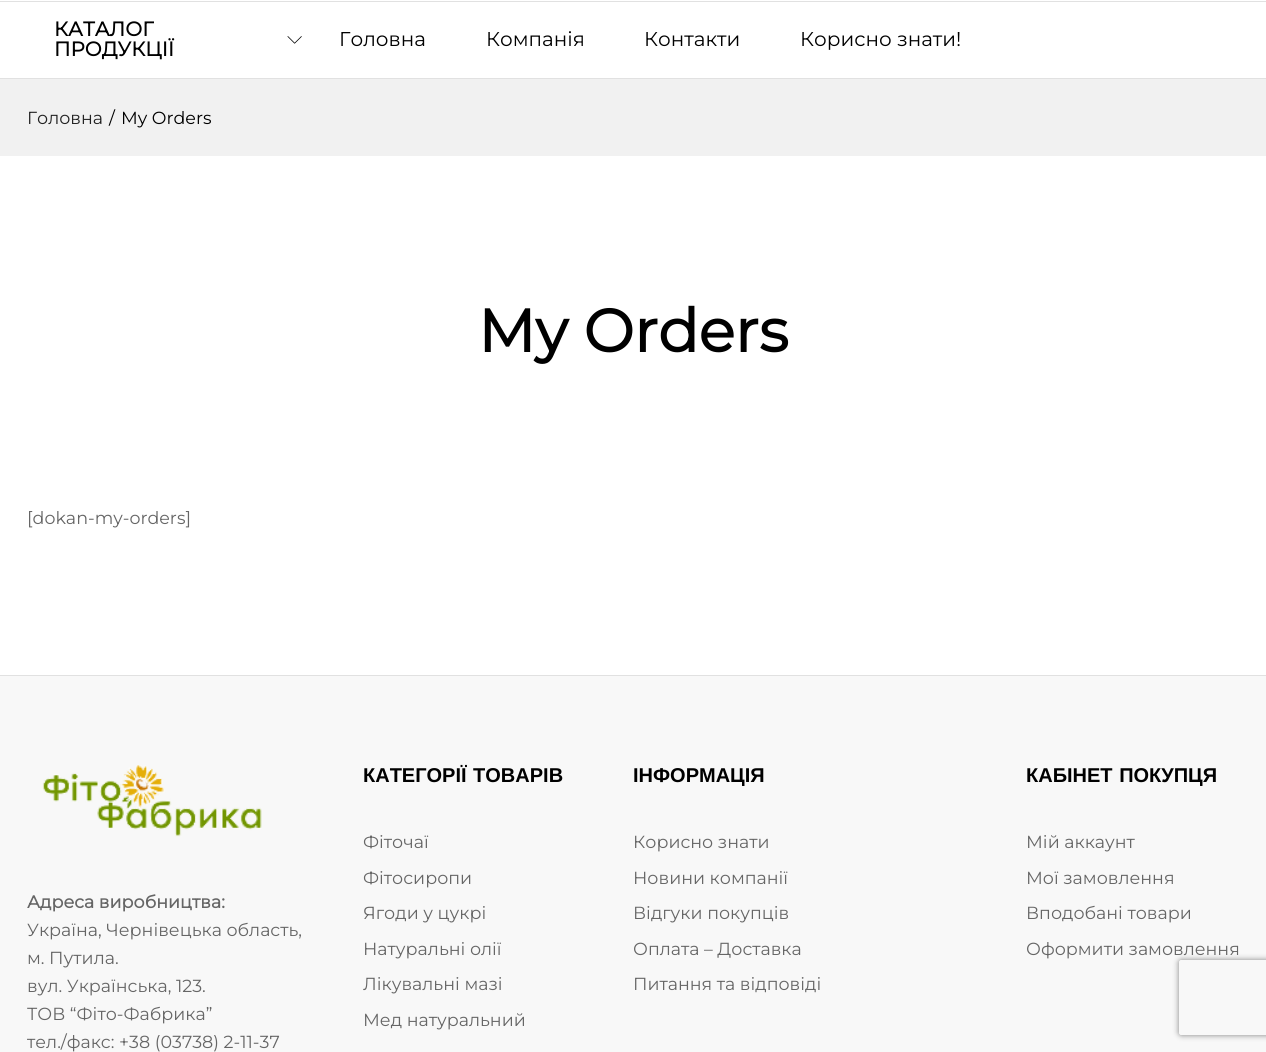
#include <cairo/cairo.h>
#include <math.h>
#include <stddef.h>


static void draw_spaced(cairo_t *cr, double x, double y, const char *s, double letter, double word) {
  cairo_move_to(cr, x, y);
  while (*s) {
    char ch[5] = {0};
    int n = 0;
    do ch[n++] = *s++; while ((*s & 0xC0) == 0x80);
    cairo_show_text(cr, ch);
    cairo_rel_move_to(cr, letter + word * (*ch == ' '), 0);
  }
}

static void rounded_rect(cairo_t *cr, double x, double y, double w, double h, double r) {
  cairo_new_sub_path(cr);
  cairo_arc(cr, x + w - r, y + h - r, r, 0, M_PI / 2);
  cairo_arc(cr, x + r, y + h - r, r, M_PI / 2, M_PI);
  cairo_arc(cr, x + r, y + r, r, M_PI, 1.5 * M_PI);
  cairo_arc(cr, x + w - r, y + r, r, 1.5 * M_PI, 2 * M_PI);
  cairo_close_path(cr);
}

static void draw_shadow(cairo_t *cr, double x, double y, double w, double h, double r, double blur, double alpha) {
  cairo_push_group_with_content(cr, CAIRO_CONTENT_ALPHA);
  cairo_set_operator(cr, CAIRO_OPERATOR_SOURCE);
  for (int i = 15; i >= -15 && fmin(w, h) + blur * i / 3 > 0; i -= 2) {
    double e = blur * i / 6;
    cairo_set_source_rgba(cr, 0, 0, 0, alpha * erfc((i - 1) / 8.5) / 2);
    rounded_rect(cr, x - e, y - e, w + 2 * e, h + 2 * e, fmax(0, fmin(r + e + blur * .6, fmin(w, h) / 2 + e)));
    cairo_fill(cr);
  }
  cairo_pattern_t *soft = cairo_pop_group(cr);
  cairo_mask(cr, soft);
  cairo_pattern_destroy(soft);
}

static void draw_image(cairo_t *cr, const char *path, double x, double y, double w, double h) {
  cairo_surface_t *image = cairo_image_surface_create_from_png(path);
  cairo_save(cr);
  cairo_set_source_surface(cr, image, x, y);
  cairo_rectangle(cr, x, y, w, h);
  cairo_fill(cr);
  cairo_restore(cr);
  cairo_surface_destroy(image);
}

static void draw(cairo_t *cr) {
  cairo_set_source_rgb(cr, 1, 1, 1);
  cairo_paint(cr);
  cairo_set_source_rgb(cr, 225 / 255.0, 225 / 255.0, 225 / 255.0);
  cairo_rectangle(cr, 0, 1, 1266, 1);
  cairo_fill(cr);
  cairo_rectangle(cr, 0, 78, 1266, 1);
  cairo_fill(cr);
  draw_image(cr, "images/1.png", 287, 36, 15, 8);
  cairo_set_source_rgb(cr, 241 / 255.0, 241 / 255.0, 241 / 255.0);
  cairo_rectangle(cr, 0, 79, 1266, 77);
  cairo_fill(cr);
  cairo_set_source_rgb(cr, 225 / 255.0, 225 / 255.0, 225 / 255.0);
  cairo_rectangle(cr, 0, 675, 1266, 1);
  cairo_fill(cr);
  cairo_set_source_rgb(cr, 248 / 255.0, 248 / 255.0, 248 / 255.0);
  cairo_rectangle(cr, 0, 676, 1266, 376);
  cairo_fill(cr);
  draw_image(cr, "images/2.png", 42, 765, 220, 72);
  cairo_save(cr);
  cairo_set_fill_rule(cr, CAIRO_FILL_RULE_EVEN_ODD);
  cairo_new_path(cr);
  cairo_move_to(cr, 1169, 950);
  cairo_line_to(cr, 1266, 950);
  cairo_line_to(cr, 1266, 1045);
  cairo_line_to(cr, 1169, 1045);
  cairo_close_path(cr);
  cairo_move_to(cr, 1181.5, 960);
  cairo_line_to(cr, 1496.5, 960);
  cairo_curve_to(cr, 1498, 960, 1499, 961, 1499, 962.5);
  cairo_line_to(cr, 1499, 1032.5);
  cairo_curve_to(cr, 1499, 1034, 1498, 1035, 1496.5, 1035);
  cairo_line_to(cr, 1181.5, 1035);
  cairo_curve_to(cr, 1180, 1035, 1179, 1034, 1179, 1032.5);
  cairo_line_to(cr, 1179, 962.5);
  cairo_curve_to(cr, 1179, 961, 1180, 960, 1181.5, 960);
  cairo_close_path(cr);
  cairo_clip(cr);
  cairo_set_source_rgb(cr, 128 / 255.0, 128 / 255.0, 128 / 255.0);
  draw_shadow(cr, 1179, 960, 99, 75, 2.5, 3, 1);
  cairo_restore(cr);
  cairo_select_font_face(cr, "Montserrat", CAIRO_FONT_SLANT_NORMAL, CAIRO_FONT_WEIGHT_BOLD);
  cairo_set_font_size(cr, 20);
  cairo_set_source_rgb(cr, 0, 0, 0);
  cairo_move_to(cr, 54, 36);
  cairo_show_text(cr, "КАТАЛОГ");
  cairo_move_to(cr, 54, 56);
  cairo_show_text(cr, "ПРОДУКЦІЇ");
  cairo_select_font_face(cr, "Montserrat Thin", CAIRO_FONT_SLANT_NORMAL, CAIRO_FONT_WEIGHT_NORMAL);
  cairo_move_to(cr, 339, 46);
  cairo_show_text(cr, "Головна");
  cairo_move_to(cr, 486, 46);
  cairo_show_text(cr, "Компанія");
  cairo_move_to(cr, 644, 46);
  cairo_show_text(cr, "Контакти");
  cairo_move_to(cr, 800, 46);
  cairo_show_text(cr, "Корисно знати!");
  cairo_set_font_size(cr, 17.5);
  cairo_set_source_rgb(cr, 34 / 255.0, 34 / 255.0, 34 / 255.0);
  cairo_move_to(cr, 27, 124);
  cairo_show_text(cr, "Головна");
  cairo_set_source_rgb(cr, 0, 0, 0);
  cairo_move_to(cr, 109, 124);
  cairo_show_text(cr, "/");
  cairo_move_to(cr, 121, 124);
  cairo_show_text(cr, "My Orders");
  cairo_select_font_face(cr, "Montserrat", CAIRO_FONT_SLANT_NORMAL, CAIRO_FONT_WEIGHT_BOLD);
  cairo_set_font_size(cr, 60);
  cairo_move_to(cr, 478, 352);
  cairo_show_text(cr, "My Orders");
  cairo_select_font_face(cr, "Montserrat Thin", CAIRO_FONT_SLANT_NORMAL, CAIRO_FONT_WEIGHT_NORMAL);
  cairo_set_font_size(cr, 17.5);
  cairo_set_source_rgb(cr, 102 / 255.0, 102 / 255.0, 102 / 255.0);
  cairo_move_to(cr, 27, 524);
  cairo_show_text(cr, "[dokan-my-orders]");
  cairo_select_font_face(cr, "Montserrat", CAIRO_FONT_SLANT_NORMAL, CAIRO_FONT_WEIGHT_BOLD);
  cairo_move_to(cr, 27, 908);
  cairo_show_text(cr, "Адреса виробництва:");
  cairo_select_font_face(cr, "Montserrat Thin", CAIRO_FONT_SLANT_NORMAL, CAIRO_FONT_WEIGHT_NORMAL);
  cairo_move_to(cr, 27, 936);
  cairo_show_text(cr, "Україна, Чернівецька область,");
  cairo_move_to(cr, 27, 964);
  cairo_show_text(cr, "м. Путила.");
  cairo_move_to(cr, 27, 992);
  cairo_show_text(cr, "вул. Українська, 123.");
  cairo_move_to(cr, 27, 1020);
  cairo_show_text(cr, "ТОВ “Фіто-Фабрика”");
  cairo_move_to(cr, 27, 1048);
  cairo_show_text(cr, "тел./факс: +38 (03738) 2-11-37");
  cairo_select_font_face(cr, "Liberation Sans", CAIRO_FONT_SLANT_NORMAL, CAIRO_FONT_WEIGHT_BOLD);
  cairo_set_font_size(cr, 20);
  cairo_set_source_rgb(cr, 0, 0, 0);
  draw_spaced(cr, 363, 782, "КАТЕГОРІЇ ТОВАРІВ", 0, 1);
  cairo_select_font_face(cr, "Montserrat Thin", CAIRO_FONT_SLANT_NORMAL, CAIRO_FONT_WEIGHT_NORMAL);
  cairo_set_font_size(cr, 17.5);
  cairo_set_source_rgb(cr, 102 / 255.0, 102 / 255.0, 102 / 255.0);
  cairo_move_to(cr, 363, 848);
  cairo_show_text(cr, "Фіточаї");
  cairo_move_to(cr, 363, 884);
  cairo_show_text(cr, "Фітосиропи");
  cairo_move_to(cr, 363, 919);
  cairo_show_text(cr, "Ягоди у цукрі");
  cairo_move_to(cr, 363, 955);
  cairo_show_text(cr, "Натуральні олії");
  cairo_move_to(cr, 363, 990);
  cairo_show_text(cr, "Лікувальні мазі");
  cairo_move_to(cr, 363, 1026);
  cairo_show_text(cr, "Мед натуральний");
  cairo_select_font_face(cr, "Liberation Sans", CAIRO_FONT_SLANT_NORMAL, CAIRO_FONT_WEIGHT_BOLD);
  cairo_set_font_size(cr, 20);
  cairo_set_source_rgb(cr, 0, 0, 0);
  cairo_move_to(cr, 633, 782);
  cairo_show_text(cr, "ІНФОРМАЦІЯ");
  cairo_select_font_face(cr, "Montserrat Thin", CAIRO_FONT_SLANT_NORMAL, CAIRO_FONT_WEIGHT_NORMAL);
  cairo_set_font_size(cr, 17.5);
  cairo_set_source_rgb(cr, 102 / 255.0, 102 / 255.0, 102 / 255.0);
  cairo_move_to(cr, 633, 848);
  cairo_show_text(cr, "Корисно знати");
  cairo_move_to(cr, 633, 884);
  cairo_show_text(cr, "Новини компанії");
  cairo_move_to(cr, 633, 919);
  cairo_show_text(cr, "Відгуки покупців");
  cairo_move_to(cr, 633, 955);
  cairo_show_text(cr, "Оплата – Доставка");
  cairo_move_to(cr, 633, 990);
  cairo_show_text(cr, "Питання та відповіді");
  cairo_select_font_face(cr, "Liberation Sans", CAIRO_FONT_SLANT_NORMAL, CAIRO_FONT_WEIGHT_BOLD);
  cairo_set_font_size(cr, 20);
  cairo_set_source_rgb(cr, 0, 0, 0);
  draw_spaced(cr, 1026, 782, "КАБІНЕТ ПОКУПЦЯ", 0, 1);
  cairo_select_font_face(cr, "Montserrat Thin", CAIRO_FONT_SLANT_NORMAL, CAIRO_FONT_WEIGHT_NORMAL);
  cairo_set_font_size(cr, 17.5);
  cairo_set_source_rgb(cr, 102 / 255.0, 102 / 255.0, 102 / 255.0);
  cairo_move_to(cr, 1026, 848);
  cairo_show_text(cr, "Мій аккаунт");
  cairo_move_to(cr, 1026, 884);
  cairo_show_text(cr, "Мої замовлення");
  cairo_move_to(cr, 1026, 919);
  cairo_show_text(cr, "Вподобані товари");
  cairo_move_to(cr, 1026, 955);
  cairo_show_text(cr, "Оформити замовлення");
}

int main(void) {
  cairo_surface_t *surface = cairo_image_surface_create(CAIRO_FORMAT_RGB24, 1266, 1052);
  cairo_t *cr = cairo_create(surface);
  cairo_font_options_t *options = cairo_font_options_create();
  cairo_font_options_set_hint_metrics(options, CAIRO_HINT_METRICS_OFF);
  cairo_font_options_set_hint_style(options, CAIRO_HINT_STYLE_NONE);
  cairo_set_font_options(cr, options);
  cairo_set_miter_limit(cr, 4);
  draw(cr);
  cairo_surface_write_to_png(surface, "out.png");
  cairo_font_options_destroy(options);
  cairo_destroy(cr);
  cairo_surface_destroy(surface);
  return 0;
}
